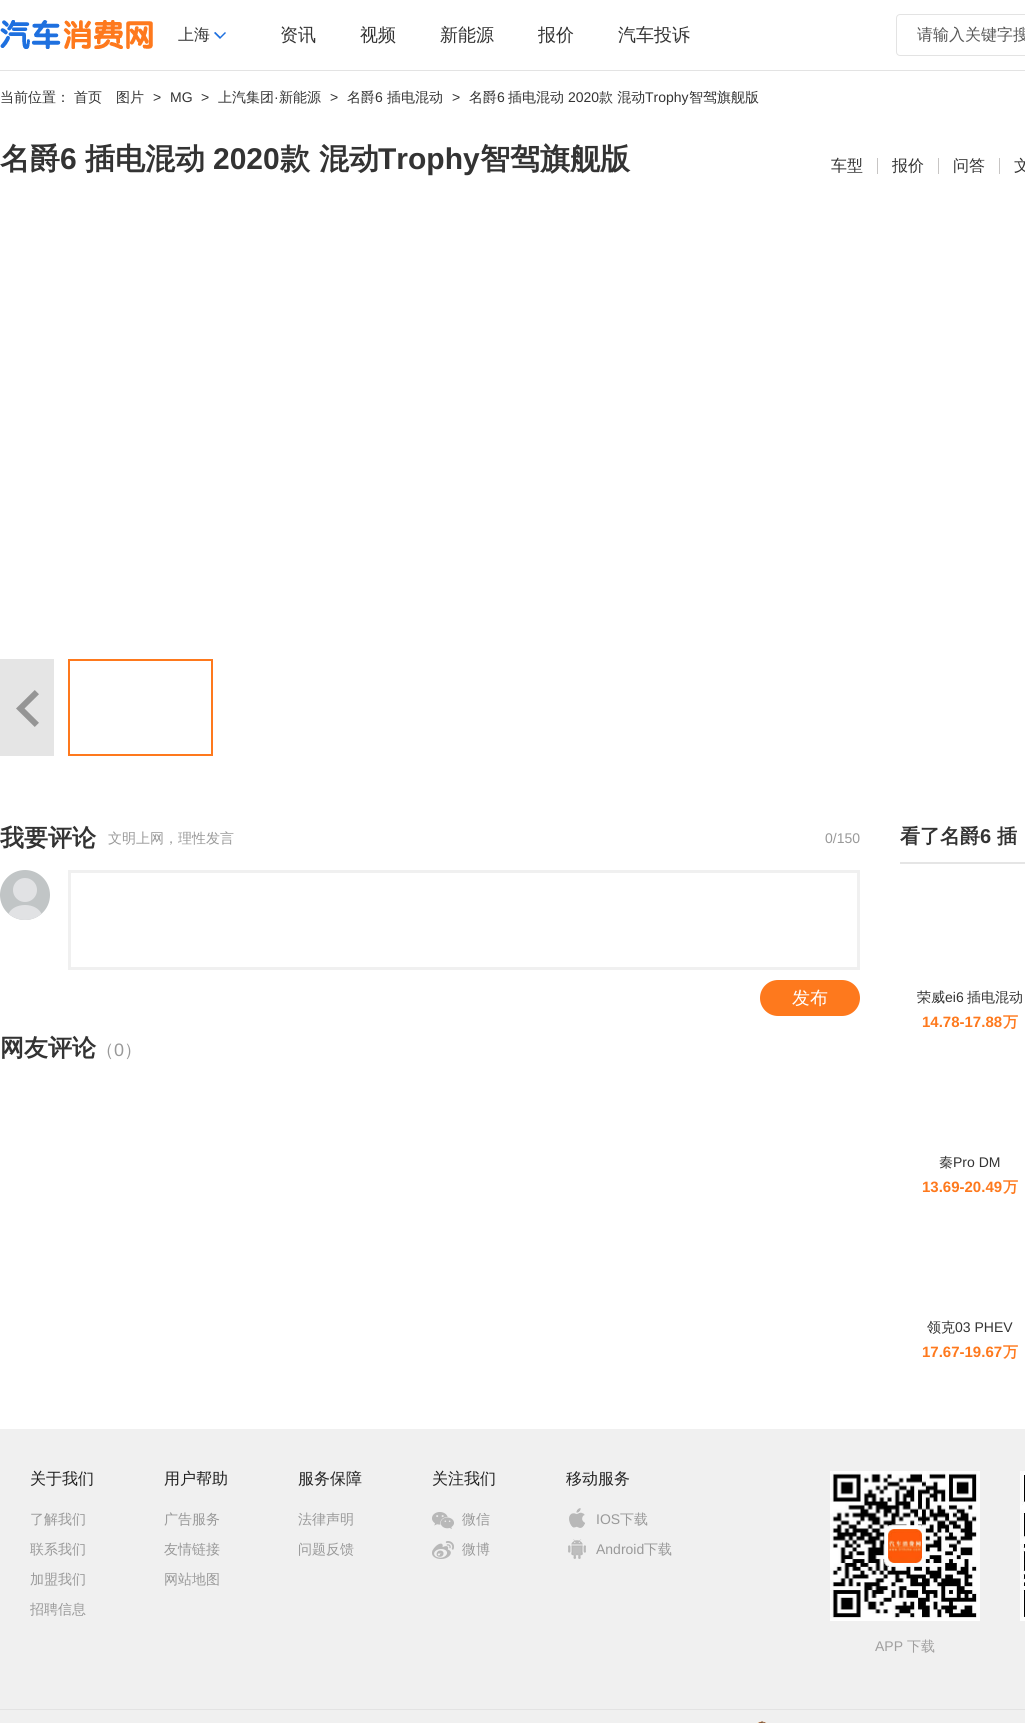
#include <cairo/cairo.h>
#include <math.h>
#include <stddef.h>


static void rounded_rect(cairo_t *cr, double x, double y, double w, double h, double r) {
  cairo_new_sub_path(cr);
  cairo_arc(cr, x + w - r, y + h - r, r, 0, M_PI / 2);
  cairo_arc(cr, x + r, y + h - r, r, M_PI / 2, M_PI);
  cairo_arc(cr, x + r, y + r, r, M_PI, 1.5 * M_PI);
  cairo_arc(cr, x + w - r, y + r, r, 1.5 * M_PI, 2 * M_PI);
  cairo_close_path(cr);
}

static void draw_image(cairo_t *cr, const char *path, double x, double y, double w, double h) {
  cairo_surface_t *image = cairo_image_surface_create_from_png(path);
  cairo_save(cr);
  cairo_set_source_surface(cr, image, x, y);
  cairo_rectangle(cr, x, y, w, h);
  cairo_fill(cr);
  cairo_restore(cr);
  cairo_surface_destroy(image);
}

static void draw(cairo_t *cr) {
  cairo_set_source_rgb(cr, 1, 1, 1);
  cairo_paint(cr);
  cairo_set_source_rgb(cr, 227 / 255.0, 227 / 255.0, 227 / 255.0);
  cairo_rectangle(cr, 0, 70, 1025, 1);
  cairo_fill(cr);
  draw_image(cr, "images/1.png", 0, 20, 153, 29);
  draw_image(cr, "images/2.png", 214, 32, 12, 7);
  rounded_rect(cr, 896.5, 14.5, 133, 41, 3.5);
  cairo_set_line_width(cr, 1);
  cairo_stroke(cr);
  cairo_set_source_rgb(cr, 199 / 255.0, 197 / 255.0, 196 / 255.0);
  cairo_rectangle(cr, 877, 158, 1, 16);
  cairo_fill(cr);
  cairo_rectangle(cr, 938, 158, 1, 16);
  cairo_fill(cr);
  cairo_rectangle(cr, 999, 158, 1, 16);
  cairo_fill(cr);
  cairo_set_source_rgb(cr, 229 / 255.0, 229 / 255.0, 229 / 255.0);
  cairo_rectangle(cr, 0, 659, 54, 97);
  cairo_fill(cr);
  draw_image(cr, "images/3.png", 16, 690, 23, 37);
  cairo_rectangle(cr, 69, 660, 143, 95);
  cairo_set_source_rgb(cr, 254 / 255.0, 121 / 255.0, 29 / 255.0);
  cairo_set_line_width(cr, 2);
  cairo_stroke(cr);
  draw_image(cr, "images/4.png", 0, 870, 50, 50);
  cairo_rectangle(cr, 69.5, 871.5, 789, 97);
  cairo_set_source_rgb(cr, 240 / 255.0, 240 / 255.0, 240 / 255.0);
  cairo_set_line_width(cr, 3);
  cairo_stroke(cr);
  cairo_set_source_rgb(cr, 254 / 255.0, 121 / 255.0, 29 / 255.0);
  rounded_rect(cr, 760, 980, 100, 36, 18);
  cairo_fill(cr);
  cairo_set_source_rgb(cr, 229 / 255.0, 229 / 255.0, 229 / 255.0);
  cairo_rectangle(cr, 900, 862, 125, 2);
  cairo_fill(cr);
  cairo_set_source_rgb(cr, 240 / 255.0, 240 / 255.0, 240 / 255.0);
  cairo_rectangle(cr, 0, 1429, 1025, 294);
  cairo_fill(cr);
  draw_image(cr, "images/5.png", 432, 1512, 22, 17);
  draw_image(cr, "images/6.png", 432, 1541, 22, 18);
  draw_image(cr, "images/7.png", 569, 1508, 16, 20);
  draw_image(cr, "images/8.png", 568, 1539, 18, 20);
  draw_image(cr, "images/9.png", 1020, 1471, 5, 150);
  draw_image(cr, "images/10.png", 830, 1471, 150, 150);
  cairo_set_source_rgb(cr, 227 / 255.0, 227 / 255.0, 227 / 255.0);
  cairo_rectangle(cr, 0, 1709, 1025, 1);
  cairo_fill(cr);
  draw_image(cr, "images/11.png", 757, 1721, 10, 2);
  cairo_select_font_face(cr, "WenQuanYi Zen Hei Medium", CAIRO_FONT_SLANT_NORMAL, CAIRO_FONT_WEIGHT_NORMAL);
  cairo_set_font_size(cr, 16);
  cairo_set_source_rgb(cr, 51 / 255.0, 51 / 255.0, 51 / 255.0);
  cairo_move_to(cr, 178, 40);
  cairo_show_text(cr, "上海");
  cairo_set_font_size(cr, 18);
  cairo_move_to(cr, 280, 41);
  cairo_show_text(cr, "资讯");
  cairo_move_to(cr, 360, 41);
  cairo_show_text(cr, "视频");
  cairo_move_to(cr, 440, 41);
  cairo_show_text(cr, "新能源");
  cairo_move_to(cr, 538, 41);
  cairo_show_text(cr, "报价");
  cairo_move_to(cr, 618, 41);
  cairo_show_text(cr, "汽车投诉");
  cairo_set_font_size(cr, 16);
  cairo_set_source_rgb(cr, 88 / 255.0, 88 / 255.0, 88 / 255.0);
  cairo_move_to(cr, 917, 40);
  cairo_show_text(cr, "请输入关键字搜");
  cairo_set_font_size(cr, 14);
  cairo_set_source_rgb(cr, 51 / 255.0, 51 / 255.0, 51 / 255.0);
  cairo_move_to(cr, 0, 102);
  cairo_show_text(cr, "当前位置：");
  cairo_move_to(cr, 74, 102);
  cairo_show_text(cr, "首页");
  cairo_move_to(cr, 116, 102);
  cairo_show_text(cr, "图片");
  cairo_select_font_face(cr, "Liberation Sans", CAIRO_FONT_SLANT_NORMAL, CAIRO_FONT_WEIGHT_NORMAL);
  cairo_move_to(cr, 153, 102);
  cairo_show_text(cr, ">");
  cairo_move_to(cr, 170, 102);
  cairo_show_text(cr, "MG");
  cairo_move_to(cr, 201, 102);
  cairo_show_text(cr, ">");
  cairo_select_font_face(cr, "WenQuanYi Zen Hei Medium", CAIRO_FONT_SLANT_NORMAL, CAIRO_FONT_WEIGHT_NORMAL);
  cairo_move_to(cr, 218, 102);
  cairo_show_text(cr, "上汽集团");
  cairo_select_font_face(cr, "Liberation Sans", CAIRO_FONT_SLANT_NORMAL, CAIRO_FONT_WEIGHT_NORMAL);
  cairo_move_to(cr, 274, 102);
  cairo_show_text(cr, "·");
  cairo_select_font_face(cr, "WenQuanYi Zen Hei Medium", CAIRO_FONT_SLANT_NORMAL, CAIRO_FONT_WEIGHT_NORMAL);
  cairo_move_to(cr, 279, 102);
  cairo_show_text(cr, "新能源");
  cairo_select_font_face(cr, "Liberation Sans", CAIRO_FONT_SLANT_NORMAL, CAIRO_FONT_WEIGHT_NORMAL);
  cairo_move_to(cr, 330, 102);
  cairo_show_text(cr, ">");
  cairo_select_font_face(cr, "WenQuanYi Zen Hei Medium", CAIRO_FONT_SLANT_NORMAL, CAIRO_FONT_WEIGHT_NORMAL);
  cairo_move_to(cr, 347, 102);
  cairo_show_text(cr, "名爵");
  cairo_select_font_face(cr, "Liberation Sans", CAIRO_FONT_SLANT_NORMAL, CAIRO_FONT_WEIGHT_NORMAL);
  cairo_move_to(cr, 375, 102);
  cairo_show_text(cr, "6");
  cairo_select_font_face(cr, "WenQuanYi Zen Hei Medium", CAIRO_FONT_SLANT_NORMAL, CAIRO_FONT_WEIGHT_NORMAL);
  cairo_move_to(cr, 387, 102);
  cairo_show_text(cr, "插电混动");
  cairo_select_font_face(cr, "Liberation Sans", CAIRO_FONT_SLANT_NORMAL, CAIRO_FONT_WEIGHT_NORMAL);
  cairo_move_to(cr, 452, 102);
  cairo_show_text(cr, ">");
  cairo_select_font_face(cr, "WenQuanYi Zen Hei Medium", CAIRO_FONT_SLANT_NORMAL, CAIRO_FONT_WEIGHT_NORMAL);
  cairo_move_to(cr, 469, 102);
  cairo_show_text(cr, "名爵");
  cairo_select_font_face(cr, "Liberation Sans", CAIRO_FONT_SLANT_NORMAL, CAIRO_FONT_WEIGHT_NORMAL);
  cairo_move_to(cr, 497, 102);
  cairo_show_text(cr, "6");
  cairo_select_font_face(cr, "WenQuanYi Zen Hei Medium", CAIRO_FONT_SLANT_NORMAL, CAIRO_FONT_WEIGHT_NORMAL);
  cairo_move_to(cr, 508, 102);
  cairo_show_text(cr, "插电混动");
  cairo_select_font_face(cr, "Liberation Sans", CAIRO_FONT_SLANT_NORMAL, CAIRO_FONT_WEIGHT_NORMAL);
  cairo_move_to(cr, 568, 102);
  cairo_show_text(cr, "2020");
  cairo_select_font_face(cr, "WenQuanYi Zen Hei Medium", CAIRO_FONT_SLANT_NORMAL, CAIRO_FONT_WEIGHT_NORMAL);
  cairo_move_to(cr, 599, 102);
  cairo_show_text(cr, "款 混动");
  cairo_select_font_face(cr, "Liberation Sans", CAIRO_FONT_SLANT_NORMAL, CAIRO_FONT_WEIGHT_NORMAL);
  cairo_move_to(cr, 645, 102);
  cairo_show_text(cr, "Trophy");
  cairo_select_font_face(cr, "WenQuanYi Zen Hei Medium", CAIRO_FONT_SLANT_NORMAL, CAIRO_FONT_WEIGHT_NORMAL);
  cairo_move_to(cr, 689, 102);
  cairo_show_text(cr, "智驾旗舰版");
  cairo_select_font_face(cr, "WenQuanYi Zen Hei", CAIRO_FONT_SLANT_NORMAL, CAIRO_FONT_WEIGHT_BOLD);
  cairo_set_font_size(cr, 30);
  cairo_move_to(cr, 0, 169);
  cairo_show_text(cr, "名爵");
  cairo_select_font_face(cr, "Liberation Sans", CAIRO_FONT_SLANT_NORMAL, CAIRO_FONT_WEIGHT_BOLD);
  cairo_move_to(cr, 60, 169);
  cairo_show_text(cr, "6");
  cairo_select_font_face(cr, "WenQuanYi Zen Hei", CAIRO_FONT_SLANT_NORMAL, CAIRO_FONT_WEIGHT_BOLD);
  cairo_move_to(cr, 85, 169);
  cairo_show_text(cr, "插电混动");
  cairo_select_font_face(cr, "Liberation Sans", CAIRO_FONT_SLANT_NORMAL, CAIRO_FONT_WEIGHT_BOLD);
  cairo_move_to(cr, 213, 169);
  cairo_show_text(cr, "2020");
  cairo_select_font_face(cr, "WenQuanYi Zen Hei", CAIRO_FONT_SLANT_NORMAL, CAIRO_FONT_WEIGHT_BOLD);
  cairo_move_to(cr, 280, 169);
  cairo_show_text(cr, "款 混动");
  cairo_select_font_face(cr, "Liberation Sans", CAIRO_FONT_SLANT_NORMAL, CAIRO_FONT_WEIGHT_BOLD);
  cairo_move_to(cr, 378, 169);
  cairo_show_text(cr, "Trophy");
  cairo_select_font_face(cr, "WenQuanYi Zen Hei", CAIRO_FONT_SLANT_NORMAL, CAIRO_FONT_WEIGHT_BOLD);
  cairo_move_to(cr, 480, 169);
  cairo_show_text(cr, "智驾旗舰版");
  cairo_select_font_face(cr, "WenQuanYi Zen Hei Medium", CAIRO_FONT_SLANT_NORMAL, CAIRO_FONT_WEIGHT_NORMAL);
  cairo_set_font_size(cr, 16);
  cairo_move_to(cr, 831, 171);
  cairo_show_text(cr, "车型");
  cairo_move_to(cr, 892, 171);
  cairo_show_text(cr, "报价");
  cairo_move_to(cr, 953, 171);
  cairo_show_text(cr, "问答");
  cairo_move_to(cr, 1014, 171);
  cairo_show_text(cr, "文");
  cairo_select_font_face(cr, "WenQuanYi Zen Hei", CAIRO_FONT_SLANT_NORMAL, CAIRO_FONT_WEIGHT_BOLD);
  cairo_set_font_size(cr, 24);
  cairo_move_to(cr, 0, 846);
  cairo_show_text(cr, "我要评论");
  cairo_select_font_face(cr, "WenQuanYi Zen Hei Medium", CAIRO_FONT_SLANT_NORMAL, CAIRO_FONT_WEIGHT_NORMAL);
  cairo_set_font_size(cr, 14);
  cairo_set_source_rgb(cr, 153 / 255.0, 153 / 255.0, 153 / 255.0);
  cairo_move_to(cr, 108, 843);
  cairo_show_text(cr, "文明上网，理性发言");
  cairo_select_font_face(cr, "Liberation Sans", CAIRO_FONT_SLANT_NORMAL, CAIRO_FONT_WEIGHT_NORMAL);
  cairo_move_to(cr, 825, 843);
  cairo_show_text(cr, "0/150");
  cairo_select_font_face(cr, "WenQuanYi Zen Hei Medium", CAIRO_FONT_SLANT_NORMAL, CAIRO_FONT_WEIGHT_NORMAL);
  cairo_set_font_size(cr, 18);
  cairo_set_source_rgb(cr, 1, 1, 1);
  cairo_move_to(cr, 792, 1004);
  cairo_show_text(cr, "发布");
  cairo_select_font_face(cr, "WenQuanYi Zen Hei", CAIRO_FONT_SLANT_NORMAL, CAIRO_FONT_WEIGHT_BOLD);
  cairo_set_font_size(cr, 24);
  cairo_set_source_rgb(cr, 51 / 255.0, 51 / 255.0, 51 / 255.0);
  cairo_move_to(cr, 0, 1056);
  cairo_show_text(cr, "网友评论");
  cairo_select_font_face(cr, "WenQuanYi Zen Hei Medium", CAIRO_FONT_SLANT_NORMAL, CAIRO_FONT_WEIGHT_NORMAL);
  cairo_set_font_size(cr, 18);
  cairo_set_source_rgb(cr, 153 / 255.0, 153 / 255.0, 153 / 255.0);
  cairo_move_to(cr, 96, 1056);
  cairo_show_text(cr, "（");
  cairo_select_font_face(cr, "Liberation Sans", CAIRO_FONT_SLANT_NORMAL, CAIRO_FONT_WEIGHT_NORMAL);
  cairo_move_to(cr, 114, 1056);
  cairo_show_text(cr, "0");
  cairo_select_font_face(cr, "WenQuanYi Zen Hei Medium", CAIRO_FONT_SLANT_NORMAL, CAIRO_FONT_WEIGHT_NORMAL);
  cairo_move_to(cr, 124, 1056);
  cairo_show_text(cr, "）");
  cairo_select_font_face(cr, "WenQuanYi Zen Hei", CAIRO_FONT_SLANT_NORMAL, CAIRO_FONT_WEIGHT_BOLD);
  cairo_set_font_size(cr, 20);
  cairo_set_source_rgb(cr, 51 / 255.0, 51 / 255.0, 51 / 255.0);
  cairo_move_to(cr, 900, 843);
  cairo_show_text(cr, "看了名爵");
  cairo_select_font_face(cr, "Liberation Sans", CAIRO_FONT_SLANT_NORMAL, CAIRO_FONT_WEIGHT_BOLD);
  cairo_move_to(cr, 980, 843);
  cairo_show_text(cr, "6");
  cairo_select_font_face(cr, "WenQuanYi Zen Hei", CAIRO_FONT_SLANT_NORMAL, CAIRO_FONT_WEIGHT_BOLD);
  cairo_move_to(cr, 997, 843);
  cairo_show_text(cr, "插");
  cairo_select_font_face(cr, "WenQuanYi Zen Hei Medium", CAIRO_FONT_SLANT_NORMAL, CAIRO_FONT_WEIGHT_NORMAL);
  cairo_set_font_size(cr, 14);
  cairo_move_to(cr, 917, 1002);
  cairo_show_text(cr, "荣威");
  cairo_select_font_face(cr, "Liberation Sans", CAIRO_FONT_SLANT_NORMAL, CAIRO_FONT_WEIGHT_NORMAL);
  cairo_move_to(cr, 945, 1002);
  cairo_show_text(cr, "ei6");
  cairo_select_font_face(cr, "WenQuanYi Zen Hei Medium", CAIRO_FONT_SLANT_NORMAL, CAIRO_FONT_WEIGHT_NORMAL);
  cairo_move_to(cr, 967, 1002);
  cairo_show_text(cr, "插电混动");
  cairo_select_font_face(cr, "Liberation Sans", CAIRO_FONT_SLANT_NORMAL, CAIRO_FONT_WEIGHT_BOLD);
  cairo_set_font_size(cr, 15);
  cairo_set_source_rgb(cr, 254 / 255.0, 121 / 255.0, 29 / 255.0);
  cairo_move_to(cr, 922, 1027);
  cairo_show_text(cr, "14.78-17.88");
  cairo_select_font_face(cr, "WenQuanYi Zen Hei", CAIRO_FONT_SLANT_NORMAL, CAIRO_FONT_WEIGHT_BOLD);
  cairo_move_to(cr, 1003, 1027);
  cairo_show_text(cr, "万");
  cairo_select_font_face(cr, "WenQuanYi Zen Hei Medium", CAIRO_FONT_SLANT_NORMAL, CAIRO_FONT_WEIGHT_NORMAL);
  cairo_set_font_size(cr, 14);
  cairo_set_source_rgb(cr, 51 / 255.0, 51 / 255.0, 51 / 255.0);
  cairo_move_to(cr, 939, 1167);
  cairo_show_text(cr, "秦");
  cairo_select_font_face(cr, "Liberation Sans", CAIRO_FONT_SLANT_NORMAL, CAIRO_FONT_WEIGHT_NORMAL);
  cairo_move_to(cr, 953, 1167);
  cairo_show_text(cr, "Pro DM");
  cairo_select_font_face(cr, "Liberation Sans", CAIRO_FONT_SLANT_NORMAL, CAIRO_FONT_WEIGHT_BOLD);
  cairo_set_font_size(cr, 15);
  cairo_set_source_rgb(cr, 254 / 255.0, 121 / 255.0, 29 / 255.0);
  cairo_move_to(cr, 922, 1192);
  cairo_show_text(cr, "13.69-20.49");
  cairo_select_font_face(cr, "WenQuanYi Zen Hei", CAIRO_FONT_SLANT_NORMAL, CAIRO_FONT_WEIGHT_BOLD);
  cairo_move_to(cr, 1003, 1192);
  cairo_show_text(cr, "万");
  cairo_select_font_face(cr, "WenQuanYi Zen Hei Medium", CAIRO_FONT_SLANT_NORMAL, CAIRO_FONT_WEIGHT_NORMAL);
  cairo_set_font_size(cr, 14);
  cairo_set_source_rgb(cr, 51 / 255.0, 51 / 255.0, 51 / 255.0);
  cairo_move_to(cr, 927, 1332);
  cairo_show_text(cr, "领克");
  cairo_select_font_face(cr, "Liberation Sans", CAIRO_FONT_SLANT_NORMAL, CAIRO_FONT_WEIGHT_NORMAL);
  cairo_move_to(cr, 955, 1332);
  cairo_show_text(cr, "03 PHEV");
  cairo_select_font_face(cr, "Liberation Sans", CAIRO_FONT_SLANT_NORMAL, CAIRO_FONT_WEIGHT_BOLD);
  cairo_set_font_size(cr, 15);
  cairo_set_source_rgb(cr, 254 / 255.0, 121 / 255.0, 29 / 255.0);
  cairo_move_to(cr, 922, 1357);
  cairo_show_text(cr, "17.67-19.67");
  cairo_select_font_face(cr, "WenQuanYi Zen Hei", CAIRO_FONT_SLANT_NORMAL, CAIRO_FONT_WEIGHT_BOLD);
  cairo_move_to(cr, 1003, 1357);
  cairo_show_text(cr, "万");
  cairo_select_font_face(cr, "WenQuanYi Zen Hei Medium", CAIRO_FONT_SLANT_NORMAL, CAIRO_FONT_WEIGHT_NORMAL);
  cairo_set_font_size(cr, 16);
  cairo_set_source_rgb(cr, 34 / 255.0, 34 / 255.0, 34 / 255.0);
  cairo_move_to(cr, 30, 1484);
  cairo_show_text(cr, "关于我们");
  cairo_set_font_size(cr, 14);
  cairo_set_source_rgb(cr, 153 / 255.0, 153 / 255.0, 153 / 255.0);
  cairo_move_to(cr, 30, 1524);
  cairo_show_text(cr, "了解我们");
  cairo_move_to(cr, 30, 1554);
  cairo_show_text(cr, "联系我们");
  cairo_move_to(cr, 30, 1584);
  cairo_show_text(cr, "加盟我们");
  cairo_move_to(cr, 30, 1614);
  cairo_show_text(cr, "招聘信息");
  cairo_set_font_size(cr, 16);
  cairo_set_source_rgb(cr, 34 / 255.0, 34 / 255.0, 34 / 255.0);
  cairo_move_to(cr, 164, 1484);
  cairo_show_text(cr, "用户帮助");
  cairo_set_font_size(cr, 14);
  cairo_set_source_rgb(cr, 153 / 255.0, 153 / 255.0, 153 / 255.0);
  cairo_move_to(cr, 164, 1524);
  cairo_show_text(cr, "广告服务");
  cairo_move_to(cr, 164, 1554);
  cairo_show_text(cr, "友情链接");
  cairo_move_to(cr, 164, 1584);
  cairo_show_text(cr, "网站地图");
  cairo_set_font_size(cr, 16);
  cairo_set_source_rgb(cr, 34 / 255.0, 34 / 255.0, 34 / 255.0);
  cairo_move_to(cr, 298, 1484);
  cairo_show_text(cr, "服务保障");
  cairo_set_font_size(cr, 14);
  cairo_set_source_rgb(cr, 153 / 255.0, 153 / 255.0, 153 / 255.0);
  cairo_move_to(cr, 298, 1524);
  cairo_show_text(cr, "法律声明");
  cairo_move_to(cr, 298, 1554);
  cairo_show_text(cr, "问题反馈");
  cairo_set_font_size(cr, 16);
  cairo_set_source_rgb(cr, 34 / 255.0, 34 / 255.0, 34 / 255.0);
  cairo_move_to(cr, 432, 1484);
  cairo_show_text(cr, "关注我们");
  cairo_set_font_size(cr, 14);
  cairo_set_source_rgb(cr, 153 / 255.0, 153 / 255.0, 153 / 255.0);
  cairo_move_to(cr, 462, 1524);
  cairo_show_text(cr, "微信");
  cairo_move_to(cr, 462, 1554);
  cairo_show_text(cr, "微博");
  cairo_set_font_size(cr, 16);
  cairo_set_source_rgb(cr, 34 / 255.0, 34 / 255.0, 34 / 255.0);
  cairo_move_to(cr, 566, 1484);
  cairo_show_text(cr, "移动服务");
  cairo_select_font_face(cr, "Liberation Sans", CAIRO_FONT_SLANT_NORMAL, CAIRO_FONT_WEIGHT_NORMAL);
  cairo_set_font_size(cr, 14);
  cairo_set_source_rgb(cr, 153 / 255.0, 153 / 255.0, 153 / 255.0);
  cairo_move_to(cr, 596, 1524);
  cairo_show_text(cr, "IOS");
  cairo_select_font_face(cr, "WenQuanYi Zen Hei Medium", CAIRO_FONT_SLANT_NORMAL, CAIRO_FONT_WEIGHT_NORMAL);
  cairo_move_to(cr, 620, 1524);
  cairo_show_text(cr, "下载");
  cairo_select_font_face(cr, "Liberation Sans", CAIRO_FONT_SLANT_NORMAL, CAIRO_FONT_WEIGHT_NORMAL);
  cairo_move_to(cr, 596, 1554);
  cairo_show_text(cr, "Android");
  cairo_select_font_face(cr, "WenQuanYi Zen Hei Medium", CAIRO_FONT_SLANT_NORMAL, CAIRO_FONT_WEIGHT_NORMAL);
  cairo_move_to(cr, 644, 1554);
  cairo_show_text(cr, "下载");
  cairo_select_font_face(cr, "Liberation Sans", CAIRO_FONT_SLANT_NORMAL, CAIRO_FONT_WEIGHT_NORMAL);
  cairo_set_source_rgb(cr, 160 / 255.0, 159 / 255.0, 159 / 255.0);
  cairo_move_to(cr, 875, 1651);
  cairo_show_text(cr, "APP");
  cairo_select_font_face(cr, "WenQuanYi Zen Hei Medium", CAIRO_FONT_SLANT_NORMAL, CAIRO_FONT_WEIGHT_NORMAL);
  cairo_move_to(cr, 907, 1651);
  cairo_show_text(cr, "下载");
}

int main(void) {
  cairo_surface_t *surface = cairo_image_surface_create(CAIRO_FORMAT_RGB24, 1025, 1723);
  cairo_t *cr = cairo_create(surface);
  cairo_font_options_t *options = cairo_font_options_create();
  cairo_font_options_set_hint_metrics(options, CAIRO_HINT_METRICS_OFF);
  cairo_font_options_set_hint_style(options, CAIRO_HINT_STYLE_NONE);
  cairo_set_font_options(cr, options);
  cairo_set_miter_limit(cr, 4);
  draw(cr);
  cairo_surface_write_to_png(surface, "out.png");
  cairo_font_options_destroy(options);
  cairo_destroy(cr);
  cairo_surface_destroy(surface);
  return 0;
}
